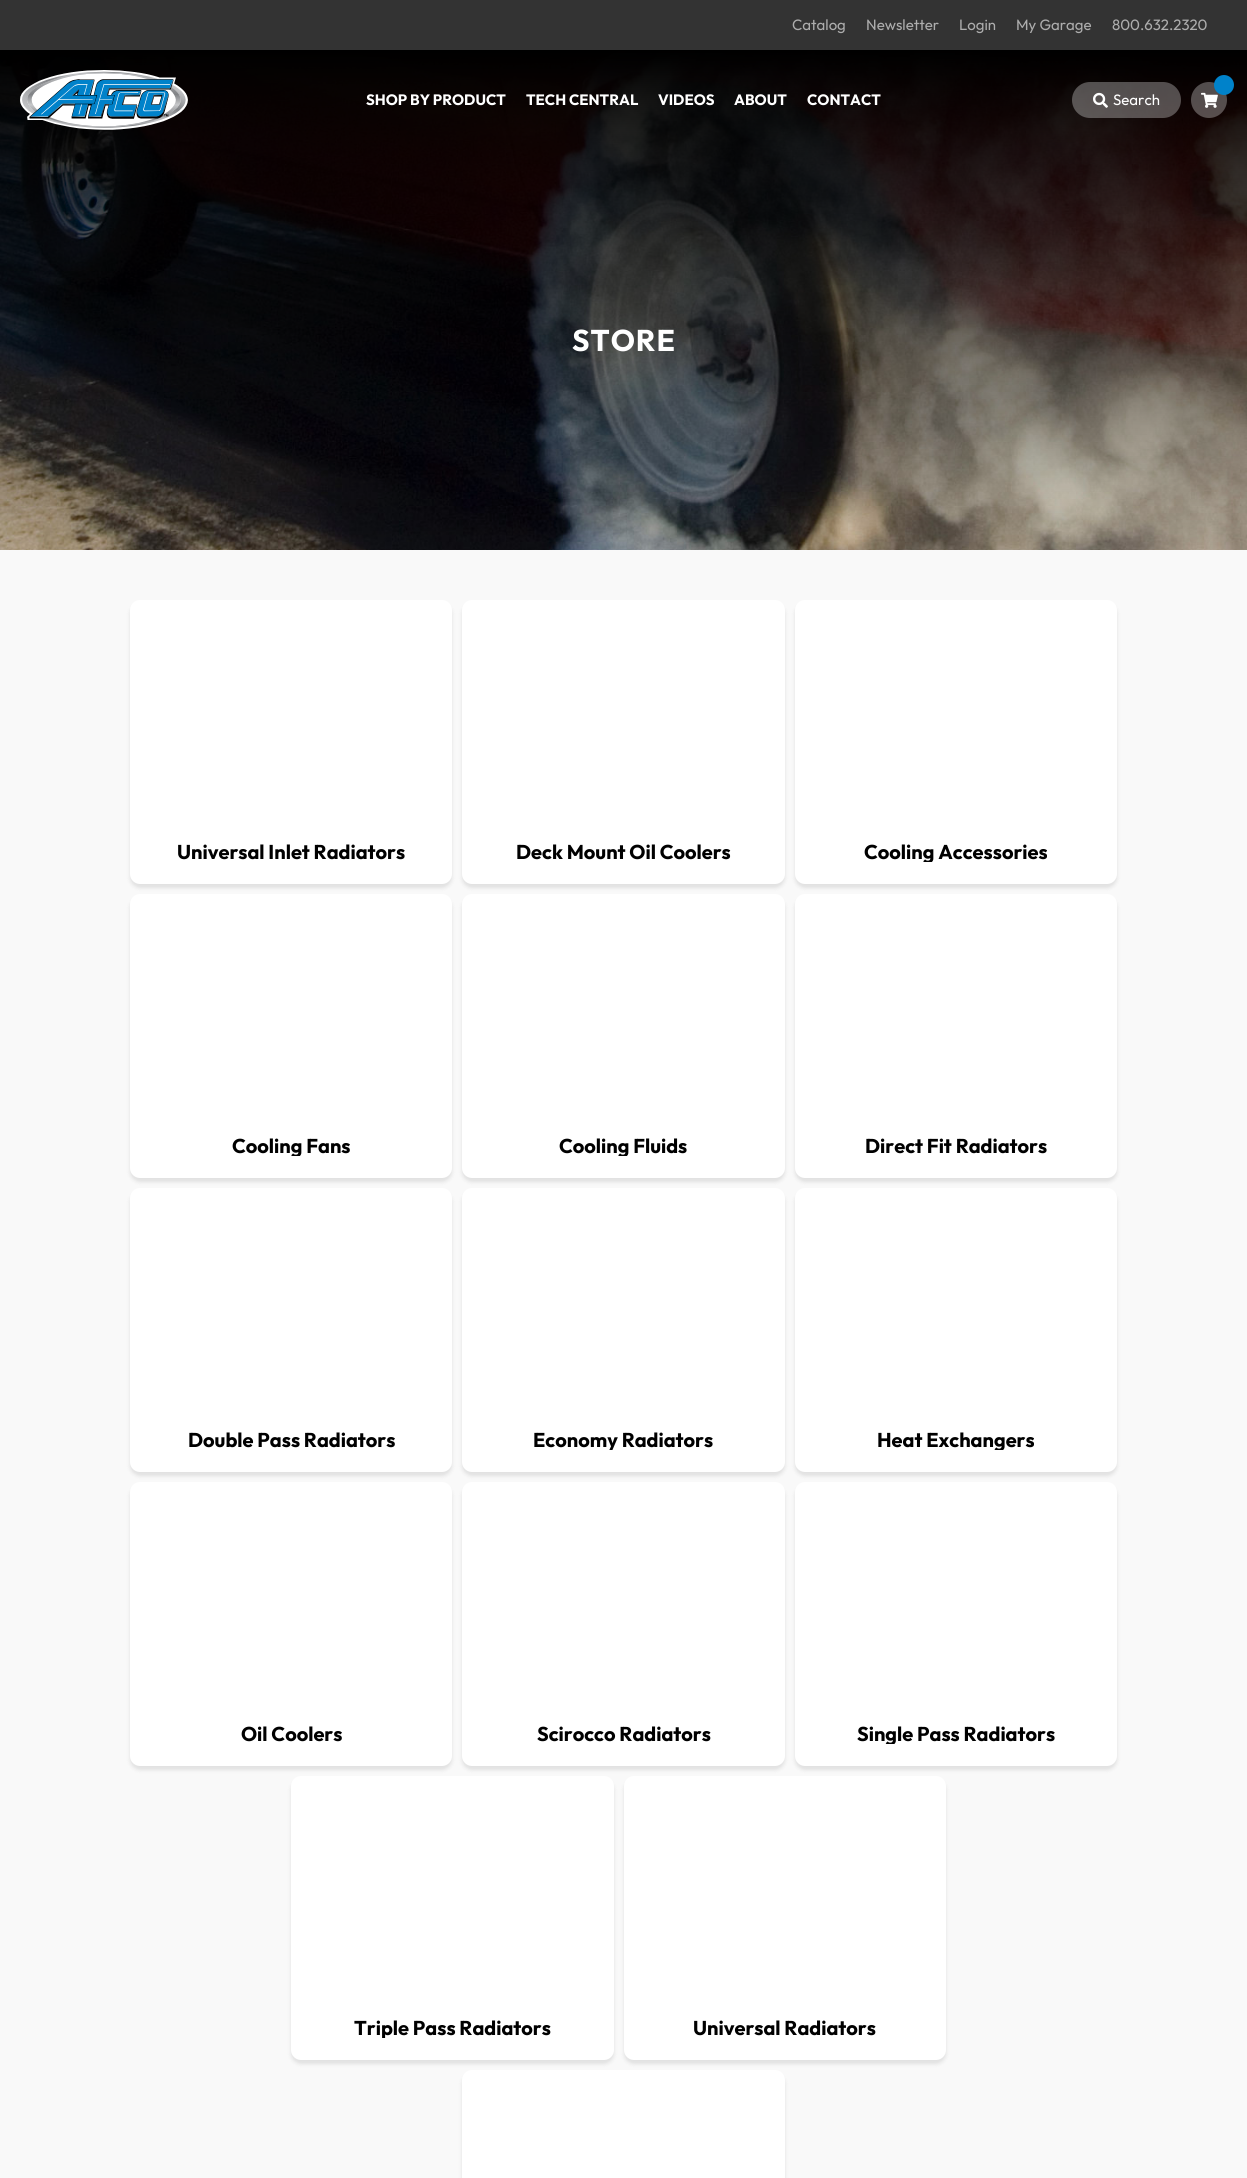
#include <cairo/cairo.h>
#include <math.h>
#include <stddef.h>


static void draw_spaced(cairo_t *cr, double x, double y, const char *s, double letter, double word) {
  cairo_move_to(cr, x, y);
  while (*s) {
    char ch[5] = {0};
    int n = 0;
    do ch[n++] = *s++; while ((*s & 0xC0) == 0x80);
    cairo_show_text(cr, ch);
    cairo_rel_move_to(cr, letter + word * (*ch == ' '), 0);
  }
}

static void rounded_rect(cairo_t *cr, double x, double y, double w, double h, double r) {
  cairo_new_sub_path(cr);
  cairo_arc(cr, x + w - r, y + h - r, r, 0, M_PI / 2);
  cairo_arc(cr, x + r, y + h - r, r, M_PI / 2, M_PI);
  cairo_arc(cr, x + r, y + r, r, M_PI, 1.5 * M_PI);
  cairo_arc(cr, x + w - r, y + r, r, 1.5 * M_PI, 2 * M_PI);
  cairo_close_path(cr);
}

static void draw_shadow(cairo_t *cr, double x, double y, double w, double h, double r, double blur, double alpha) {
  cairo_push_group_with_content(cr, CAIRO_CONTENT_ALPHA);
  cairo_set_operator(cr, CAIRO_OPERATOR_SOURCE);
  for (int i = 15; i >= -15 && fmin(w, h) + blur * i / 3 > 0; i -= 2) {
    double e = blur * i / 6;
    cairo_set_source_rgba(cr, 0, 0, 0, alpha * erfc((i - 1) / 8.5) / 2);
    rounded_rect(cr, x - e, y - e, w + 2 * e, h + 2 * e, fmax(0, fmin(r + e + blur * .6, fmin(w, h) / 2 + e)));
    cairo_fill(cr);
  }
  cairo_pattern_t *soft = cairo_pop_group(cr);
  cairo_mask(cr, soft);
  cairo_pattern_destroy(soft);
}

static void draw_image(cairo_t *cr, const char *path, double x, double y, double w, double h) {
  cairo_surface_t *image = cairo_image_surface_create_from_png(path);
  cairo_save(cr);
  cairo_set_source_surface(cr, image, x, y);
  cairo_rectangle(cr, x, y, w, h);
  cairo_fill(cr);
  cairo_restore(cr);
  cairo_surface_destroy(image);
}

static void draw(cairo_t *cr) {
  cairo_set_source_rgb(cr, 51 / 255.0, 51 / 255.0, 51 / 255.0);
  cairo_paint(cr);
  draw_image(cr, "images/4.png", 0, 50, 1247, 500);
  draw_image(cr, "images/1.png", 20, 70, 168, 60);
  cairo_set_source_rgba(cr, 1, 1, 1, 0.3);
  rounded_rect(cr, 1072, 82, 109, 36, 18);
  cairo_fill(cr);
  draw_image(cr, "images/2.png", 1093, 92, 15, 16);
  cairo_arc(cr, 1209, 100, 18, 0, 2 * M_PI);
  cairo_fill(cr);
  draw_image(cr, "images/3.png", 1201, 92, 17, 16);
  cairo_set_source_rgb(cr, 0, 130 / 255.0, 202 / 255.0);
  cairo_arc(cr, 1224, 85, 10, 0, 2 * M_PI);
  cairo_fill(cr);
  cairo_set_source_rgb(cr, 249 / 255.0, 249 / 255.0, 249 / 255.0);
  cairo_rectangle(cr, 0, 550, 1247, 1628);
  cairo_fill(cr);
  cairo_set_source_rgb(cr, 0, 0, 0);
  draw_shadow(cr, 130, 604, 322, 284, 10, 2, 0.1);
  cairo_set_source_rgb(cr, 1, 1, 1);
  rounded_rect(cr, 131, 601, 320, 282, 9);
  cairo_fill_preserve(cr);
  cairo_stroke(cr);
  cairo_set_source_rgb(cr, 0, 0, 0);
  draw_shadow(cr, 462, 604, 323, 284, 10, 2, 0.1);
  cairo_set_source_rgb(cr, 1, 1, 1);
  rounded_rect(cr, 463, 601, 321, 282, 9);
  cairo_fill_preserve(cr);
  cairo_stroke(cr);
  cairo_set_source_rgb(cr, 0, 0, 0);
  draw_shadow(cr, 795, 604, 322, 284, 10, 2, 0.1);
  cairo_set_source_rgb(cr, 1, 1, 1);
  rounded_rect(cr, 796, 601, 320, 282, 9);
  cairo_fill_preserve(cr);
  cairo_stroke(cr);
  cairo_set_source_rgb(cr, 0, 0, 0);
  draw_shadow(cr, 130, 898, 322, 284, 10, 2, 0.1);
  cairo_set_source_rgb(cr, 1, 1, 1);
  rounded_rect(cr, 131, 895, 320, 282, 9);
  cairo_fill_preserve(cr);
  cairo_stroke(cr);
  cairo_set_source_rgb(cr, 0, 0, 0);
  draw_shadow(cr, 462, 898, 323, 284, 10, 2, 0.1);
  cairo_set_source_rgb(cr, 1, 1, 1);
  rounded_rect(cr, 463, 895, 321, 282, 9);
  cairo_fill_preserve(cr);
  cairo_stroke(cr);
  cairo_set_source_rgb(cr, 0, 0, 0);
  draw_shadow(cr, 795, 898, 322, 284, 10, 2, 0.1);
  cairo_set_source_rgb(cr, 1, 1, 1);
  rounded_rect(cr, 796, 895, 320, 282, 9);
  cairo_fill_preserve(cr);
  cairo_stroke(cr);
  cairo_set_source_rgb(cr, 0, 0, 0);
  draw_shadow(cr, 130, 1192, 322, 284, 10, 2, 0.1);
  cairo_set_source_rgb(cr, 1, 1, 1);
  rounded_rect(cr, 131, 1189, 320, 282, 9);
  cairo_fill_preserve(cr);
  cairo_stroke(cr);
  cairo_set_source_rgb(cr, 0, 0, 0);
  draw_shadow(cr, 462, 1192, 323, 284, 10, 2, 0.1);
  cairo_set_source_rgb(cr, 1, 1, 1);
  rounded_rect(cr, 463, 1189, 321, 282, 9);
  cairo_fill_preserve(cr);
  cairo_stroke(cr);
  cairo_set_source_rgb(cr, 0, 0, 0);
  draw_shadow(cr, 795, 1192, 322, 284, 10, 2, 0.1);
  cairo_set_source_rgb(cr, 1, 1, 1);
  rounded_rect(cr, 796, 1189, 320, 282, 9);
  cairo_fill_preserve(cr);
  cairo_stroke(cr);
  cairo_set_source_rgb(cr, 0, 0, 0);
  draw_shadow(cr, 130, 1486, 322, 284, 10, 2, 0.1);
  cairo_set_source_rgb(cr, 1, 1, 1);
  rounded_rect(cr, 131, 1483, 320, 282, 9);
  cairo_fill_preserve(cr);
  cairo_stroke(cr);
  cairo_set_source_rgb(cr, 0, 0, 0);
  draw_shadow(cr, 462, 1486, 323, 284, 10, 2, 0.1);
  cairo_set_source_rgb(cr, 1, 1, 1);
  rounded_rect(cr, 463, 1483, 321, 282, 9);
  cairo_fill_preserve(cr);
  cairo_stroke(cr);
  cairo_set_source_rgb(cr, 0, 0, 0);
  draw_shadow(cr, 795, 1486, 322, 284, 10, 2, 0.1);
  cairo_set_source_rgb(cr, 1, 1, 1);
  rounded_rect(cr, 796, 1483, 320, 282, 9);
  cairo_fill_preserve(cr);
  cairo_stroke(cr);
  cairo_set_source_rgb(cr, 0, 0, 0);
  draw_shadow(cr, 291, 1780, 323, 284, 10, 2, 0.1);
  cairo_set_source_rgb(cr, 1, 1, 1);
  rounded_rect(cr, 292, 1777, 321, 282, 9);
  cairo_fill_preserve(cr);
  cairo_stroke(cr);
  cairo_set_source_rgb(cr, 0, 0, 0);
  draw_shadow(cr, 624, 1780, 322, 284, 10, 2, 0.1);
  cairo_set_source_rgb(cr, 1, 1, 1);
  rounded_rect(cr, 625, 1777, 320, 282, 9);
  cairo_fill_preserve(cr);
  cairo_stroke(cr);
  cairo_set_source_rgb(cr, 0, 0, 0);
  draw_shadow(cr, 462, 2074, 323, 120, 10, 2, 0.1);
  cairo_set_source_rgb(cr, 1, 1, 1);
  rounded_rect(cr, 462, 2070, 323, 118, 10);
  cairo_fill(cr);
  cairo_select_font_face(cr, "Outfit", CAIRO_FONT_SLANT_NORMAL, CAIRO_FONT_WEIGHT_NORMAL);
  cairo_set_font_size(cr, 15);
  cairo_set_source_rgb(cr, 173 / 255.0, 173 / 255.0, 173 / 255.0);
  cairo_move_to(cr, 792, 30);
  cairo_show_text(cr, "Catalog");
  cairo_move_to(cr, 866, 30);
  cairo_show_text(cr, "Newsletter");
  cairo_move_to(cr, 959, 30);
  cairo_show_text(cr, "Login");
  cairo_move_to(cr, 1016, 30);
  cairo_show_text(cr, "My Garage");
  cairo_move_to(cr, 1112, 30);
  cairo_show_text(cr, "800.632.2320");
  cairo_select_font_face(cr, "Outfit", CAIRO_FONT_SLANT_NORMAL, CAIRO_FONT_WEIGHT_BOLD);
  cairo_set_source_rgb(cr, 1, 1, 1);
  cairo_move_to(cr, 366, 105);
  cairo_show_text(cr, "SHOP BY PRODUCT");
  cairo_move_to(cr, 526, 105);
  cairo_show_text(cr, "TECH CENTRAL");
  cairo_move_to(cr, 658, 105);
  cairo_show_text(cr, "VIDEOS");
  cairo_move_to(cr, 734, 105);
  cairo_show_text(cr, "ABOUT");
  cairo_move_to(cr, 807, 105);
  cairo_show_text(cr, "CONTACT");
  cairo_select_font_face(cr, "Outfit", CAIRO_FONT_SLANT_NORMAL, CAIRO_FONT_WEIGHT_NORMAL);
  cairo_move_to(cr, 1113, 105);
  cairo_show_text(cr, "Search");
  cairo_select_font_face(cr, "Outfit", CAIRO_FONT_SLANT_NORMAL, CAIRO_FONT_WEIGHT_BOLD);
  cairo_set_font_size(cr, 30);
  draw_spaced(cr, 572, 351, "STORE", 1, 0);
  cairo_set_font_size(cr, 20);
  cairo_set_source_rgb(cr, 0, 0, 0);
  cairo_move_to(cr, 177, 859);
  cairo_show_text(cr, "Universal Inlet Radiators");
  cairo_move_to(cr, 516, 859);
  cairo_show_text(cr, "Deck Mount Oil Coolers");
  cairo_save(cr);
  cairo_rectangle(cr, 817, 842, 278, 20);
  cairo_clip(cr);
  cairo_move_to(cr, 864, 859);
  cairo_show_text(cr, "Cooling Accessories");
  cairo_restore(cr);
  cairo_save(cr);
  cairo_rectangle(cr, 152, 1136, 278, 20);
  cairo_clip(cr);
  cairo_move_to(cr, 232, 1153);
  cairo_show_text(cr, "Cooling Fans");
  cairo_restore(cr);
  cairo_save(cr);
  cairo_rectangle(cr, 484, 1136, 279, 20);
  cairo_clip(cr);
  cairo_move_to(cr, 559, 1153);
  cairo_show_text(cr, "Cooling Fluids");
  cairo_restore(cr);
  cairo_move_to(cr, 865, 1153);
  cairo_show_text(cr, "Direct Fit Radiators");
  cairo_move_to(cr, 188, 1447);
  cairo_show_text(cr, "Double Pass Radiators");
  cairo_save(cr);
  cairo_rectangle(cr, 484, 1430, 279, 20);
  cairo_clip(cr);
  cairo_move_to(cr, 533, 1447);
  cairo_show_text(cr, "Economy Radiators");
  cairo_restore(cr);
  cairo_save(cr);
  cairo_rectangle(cr, 817, 1430, 278, 20);
  cairo_clip(cr);
  cairo_move_to(cr, 877, 1447);
  cairo_show_text(cr, "Heat Exchangers");
  cairo_restore(cr);
  cairo_move_to(cr, 241, 1741);
  cairo_show_text(cr, "Oil Coolers");
  cairo_move_to(cr, 537, 1741);
  cairo_show_text(cr, "Scirocco Radiators");
  cairo_save(cr);
  cairo_rectangle(cr, 817, 1724, 278, 20);
  cairo_clip(cr);
  cairo_move_to(cr, 857, 1741);
  cairo_show_text(cr, "Single Pass Radiators");
  cairo_restore(cr);
  cairo_save(cr);
  cairo_rectangle(cr, 313, 2018, 279, 20);
  cairo_clip(cr);
  cairo_move_to(cr, 354, 2035);
  cairo_show_text(cr, "Triple Pass Radiators");
  cairo_restore(cr);
  cairo_move_to(cr, 693, 2035);
  cairo_show_text(cr, "Universal Radiators");
}

int main(void) {
  cairo_surface_t *surface = cairo_image_surface_create(CAIRO_FORMAT_RGB24, 1247, 2178);
  cairo_t *cr = cairo_create(surface);
  cairo_font_options_t *options = cairo_font_options_create();
  cairo_font_options_set_hint_metrics(options, CAIRO_HINT_METRICS_OFF);
  cairo_font_options_set_hint_style(options, CAIRO_HINT_STYLE_NONE);
  cairo_set_font_options(cr, options);
  cairo_set_miter_limit(cr, 4);
  draw(cr);
  cairo_surface_write_to_png(surface, "out.png");
  cairo_font_options_destroy(options);
  cairo_destroy(cr);
  cairo_surface_destroy(surface);
  return 0;
}
